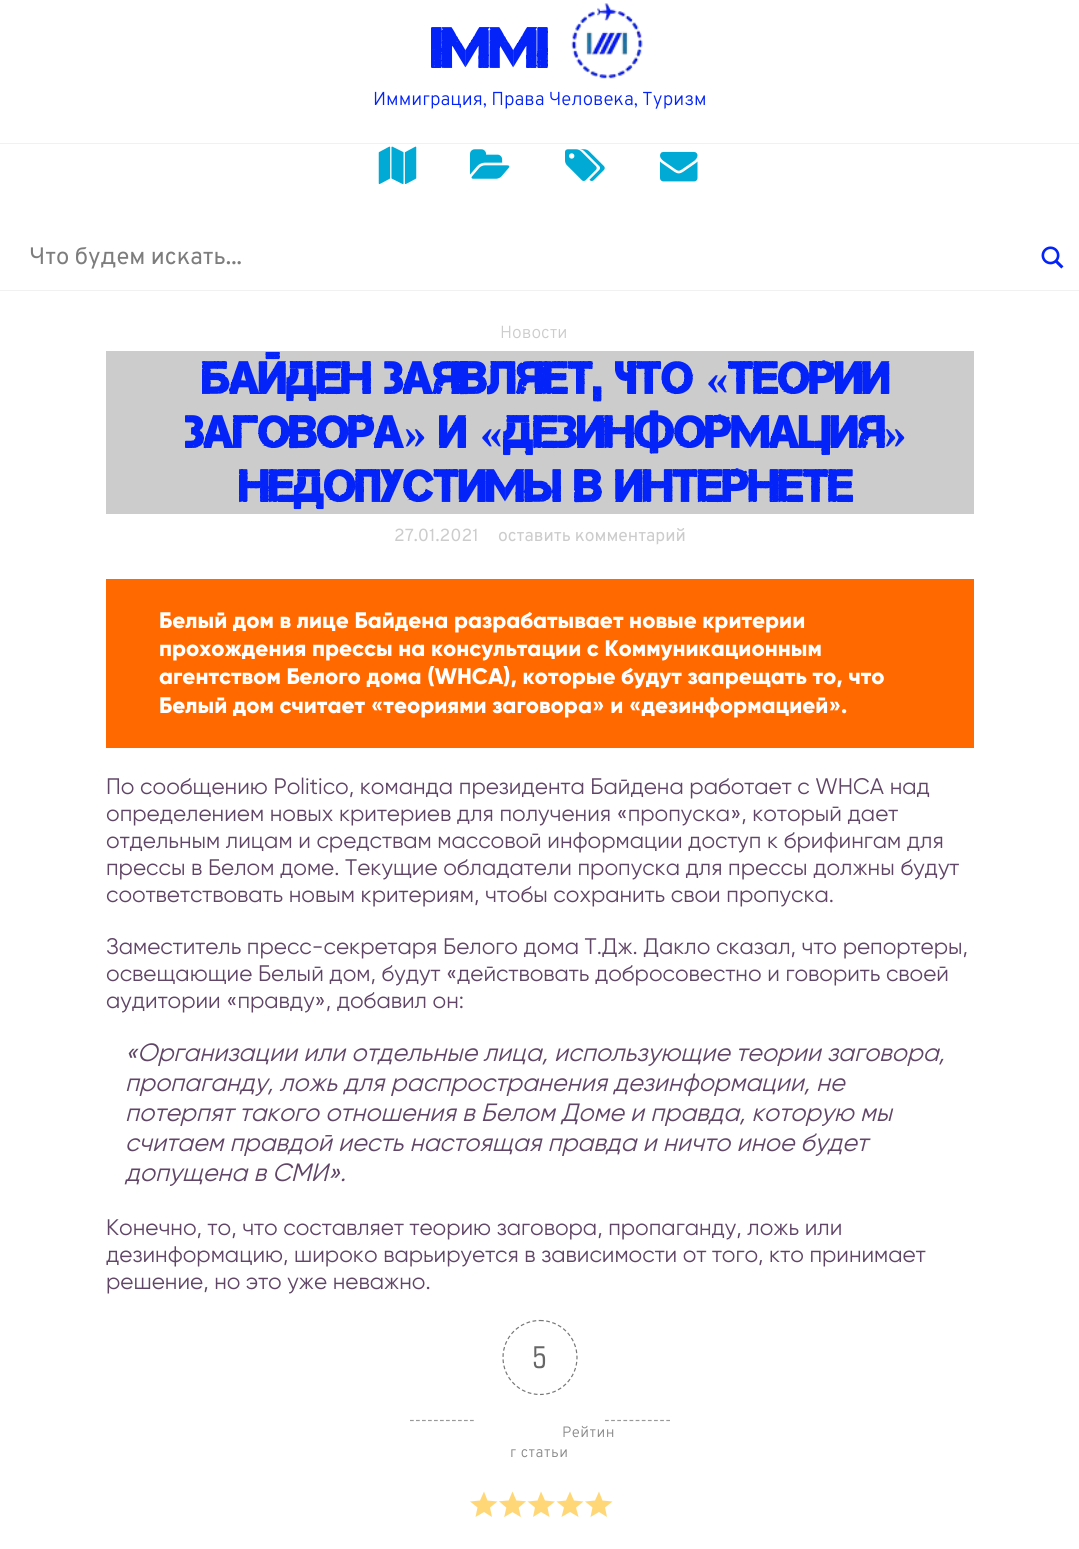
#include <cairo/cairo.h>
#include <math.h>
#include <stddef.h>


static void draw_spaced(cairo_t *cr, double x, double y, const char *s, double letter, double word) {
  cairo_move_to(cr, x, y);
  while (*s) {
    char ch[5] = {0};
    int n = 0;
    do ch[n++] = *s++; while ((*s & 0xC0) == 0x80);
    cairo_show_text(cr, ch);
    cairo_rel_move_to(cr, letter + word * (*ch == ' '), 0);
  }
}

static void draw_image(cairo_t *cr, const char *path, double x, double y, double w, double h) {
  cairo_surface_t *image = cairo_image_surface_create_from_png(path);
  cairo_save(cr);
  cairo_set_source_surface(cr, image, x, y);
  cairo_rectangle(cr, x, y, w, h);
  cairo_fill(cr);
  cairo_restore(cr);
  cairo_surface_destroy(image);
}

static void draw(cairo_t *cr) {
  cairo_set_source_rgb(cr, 1, 1, 1);
  cairo_paint(cr);
  draw_image(cr, "images/1.png", 571, 3, 72, 76);
  cairo_set_source_rgb(cr, 241 / 255.0, 241 / 255.0, 241 / 255.0);
  cairo_rectangle(cr, 0, 143, 1079, 1);
  cairo_fill(cr);
  cairo_rectangle(cr, 0, 290, 1079, 1);
  cairo_fill(cr);
  draw_image(cr, "images/2.png", 378, 146, 39, 39);
  draw_image(cr, "images/3.png", 470, 149, 40, 30);
  draw_image(cr, "images/4.png", 565, 149, 40, 32);
  draw_image(cr, "images/5.png", 660, 151, 38, 31);
  draw_image(cr, "images/6.png", 1041, 246, 23, 23);
  cairo_set_source_rgb(cr, 204 / 255.0, 204 / 255.0, 204 / 255.0);
  cairo_rectangle(cr, 106, 351, 868, 163);
  cairo_fill(cr);
  cairo_set_source_rgb(cr, 1, 105 / 255.0, 0);
  cairo_rectangle(cr, 106, 579, 868, 169);
  cairo_fill(cr);
  cairo_new_path(cr);
  cairo_move_to(cr, 410, 1420.5);
  cairo_line_to(cr, 474, 1420.5);
  cairo_set_source_rgb(cr, 153 / 255.0, 153 / 255.0, 153 / 255.0);
  cairo_set_line_width(cr, 1.2);
  cairo_set_dash(cr, (double[]){3.75, 2.25}, 2, 0);
  cairo_stroke(cr);
  cairo_new_path(cr);
  cairo_move_to(cr, 540, 1320.5);
  cairo_curve_to(cr, 560.5, 1320.5, 577, 1337, 577, 1357.5);
  cairo_curve_to(cr, 577, 1378, 560.5, 1394.5, 540, 1394.5);
  cairo_curve_to(cr, 519.5, 1394.5, 503, 1378, 503, 1357.5);
  cairo_curve_to(cr, 503, 1337, 519.5, 1320.5, 540, 1320.5);
  cairo_close_path(cr);
  cairo_set_source_rgb(cr, 119 / 255.0, 119 / 255.0, 119 / 255.0);
  cairo_set_dash(cr, (double[]){3.75, 2.5}, 2, 0);
  cairo_stroke(cr);
  cairo_set_source_rgb(cr, 1, 215 / 255.0, 119 / 255.0);
  cairo_new_path(cr);
  cairo_move_to(cr, 484, 1512);
  cairo_line_to(cr, 492, 1517);
  cairo_line_to(cr, 490, 1507.5);
  cairo_line_to(cr, 497.5, 1501.5);
  cairo_line_to(cr, 487.5, 1500.5);
  cairo_line_to(cr, 484, 1491.5);
  cairo_line_to(cr, 480, 1500.5);
  cairo_line_to(cr, 470, 1501.5);
  cairo_line_to(cr, 477.5, 1507.5);
  cairo_line_to(cr, 475.5, 1517);
  cairo_close_path(cr);
  cairo_fill(cr);
  draw_image(cr, "images/7.png", 499, 1491, 27, 26);
  cairo_new_path(cr);
  cairo_move_to(cr, 541, 1512);
  cairo_line_to(cr, 549.5, 1517);
  cairo_line_to(cr, 547.5, 1507.5);
  cairo_line_to(cr, 555, 1501.5);
  cairo_line_to(cr, 545, 1500.5);
  cairo_line_to(cr, 541, 1491.5);
  cairo_line_to(cr, 537.5, 1500.5);
  cairo_line_to(cr, 527.5, 1501.5);
  cairo_line_to(cr, 535, 1507.5);
  cairo_line_to(cr, 533, 1517);
  cairo_close_path(cr);
  cairo_move_to(cr, 570, 1512);
  cairo_line_to(cr, 578.5, 1517);
  cairo_line_to(cr, 576, 1507.5);
  cairo_line_to(cr, 583.5, 1501.5);
  cairo_line_to(cr, 574, 1500.5);
  cairo_line_to(cr, 570, 1491.5);
  cairo_line_to(cr, 566, 1500.5);
  cairo_line_to(cr, 556.5, 1501.5);
  cairo_line_to(cr, 564, 1507.5);
  cairo_line_to(cr, 561.5, 1517);
  cairo_close_path(cr);
  cairo_fill(cr);
  cairo_new_path(cr);
  cairo_move_to(cr, 599, 1512);
  cairo_line_to(cr, 607, 1517);
  cairo_line_to(cr, 605, 1507.5);
  cairo_line_to(cr, 612.5, 1501.5);
  cairo_line_to(cr, 602.5, 1500.5);
  cairo_line_to(cr, 599, 1491.5);
  cairo_line_to(cr, 595, 1500.5);
  cairo_line_to(cr, 585, 1501.5);
  cairo_line_to(cr, 592.5, 1507.5);
  cairo_line_to(cr, 590.5, 1517);
  cairo_close_path(cr);
  cairo_fill(cr);
  cairo_new_path(cr);
  cairo_move_to(cr, 605, 1420.5);
  cairo_line_to(cr, 670, 1420.5);
  cairo_set_source_rgb(cr, 153 / 255.0, 153 / 255.0, 153 / 255.0);
  cairo_set_dash(cr, (double[]){3.75, 2.38}, 2, 0);
  cairo_stroke(cr);
  cairo_select_font_face(cr, "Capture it", CAIRO_FONT_SLANT_NORMAL, CAIRO_FONT_WEIGHT_BOLD);
  cairo_set_font_size(cr, 56);
  cairo_set_source_rgb(cr, 4 / 255.0, 35 / 255.0, 248 / 255.0);
  cairo_move_to(cr, 431, 68);
  cairo_show_text(cr, "IMMI");
  cairo_select_font_face(cr, "Overpass Light", CAIRO_FONT_SLANT_NORMAL, CAIRO_FONT_WEIGHT_NORMAL);
  cairo_set_font_size(cr, 18.75);
  cairo_move_to(cr, 373, 105);
  cairo_show_text(cr, "Иммиграция, Права Человека, Туризм");
  cairo_select_font_face(cr, "Overpass", CAIRO_FONT_SLANT_NORMAL, CAIRO_FONT_WEIGHT_NORMAL);
  cairo_set_font_size(cr, 23.75);
  cairo_set_source_rgb(cr, 125 / 255.0, 125 / 255.0, 125 / 255.0);
  cairo_move_to(cr, 29, 264);
  cairo_show_text(cr, "Что будем искать...");
  cairo_select_font_face(cr, "Overpass Light", CAIRO_FONT_SLANT_NORMAL, CAIRO_FONT_WEIGHT_NORMAL);
  cairo_set_font_size(cr, 17.5);
  cairo_set_source_rgb(cr, 204 / 255.0, 204 / 255.0, 204 / 255.0);
  cairo_move_to(cr, 500, 338);
  cairo_show_text(cr, "Новости");
  cairo_select_font_face(cr, "Capture it", CAIRO_FONT_SLANT_NORMAL, CAIRO_FONT_WEIGHT_BOLD);
  cairo_set_font_size(cr, 45);
  cairo_set_source_rgb(cr, 4 / 255.0, 35 / 255.0, 248 / 255.0);
  cairo_move_to(cr, 202, 394);
  cairo_show_text(cr, "Байден Заявляет, Что");
  cairo_select_font_face(cr, "Liberation Serif", CAIRO_FONT_SLANT_NORMAL, CAIRO_FONT_WEIGHT_BOLD);
  cairo_move_to(cr, 706, 394);
  cairo_show_text(cr, "«");
  cairo_select_font_face(cr, "Capture it", CAIRO_FONT_SLANT_NORMAL, CAIRO_FONT_WEIGHT_BOLD);
  cairo_move_to(cr, 728, 394);
  cairo_show_text(cr, "Теории");
  cairo_move_to(cr, 185, 448);
  cairo_show_text(cr, "Заговора");
  cairo_select_font_face(cr, "Liberation Serif", CAIRO_FONT_SLANT_NORMAL, CAIRO_FONT_WEIGHT_BOLD);
  cairo_move_to(cr, 404, 448);
  cairo_show_text(cr, "»");
  cairo_select_font_face(cr, "Capture it", CAIRO_FONT_SLANT_NORMAL, CAIRO_FONT_WEIGHT_BOLD);
  cairo_move_to(cr, 439, 448);
  cairo_show_text(cr, "И");
  cairo_select_font_face(cr, "Liberation Serif", CAIRO_FONT_SLANT_NORMAL, CAIRO_FONT_WEIGHT_BOLD);
  cairo_move_to(cr, 480, 448);
  cairo_show_text(cr, "«");
  cairo_select_font_face(cr, "Capture it", CAIRO_FONT_SLANT_NORMAL, CAIRO_FONT_WEIGHT_BOLD);
  cairo_move_to(cr, 503, 448);
  cairo_show_text(cr, "Дезинформация");
  cairo_select_font_face(cr, "Liberation Serif", CAIRO_FONT_SLANT_NORMAL, CAIRO_FONT_WEIGHT_BOLD);
  cairo_move_to(cr, 884, 448);
  cairo_show_text(cr, "»");
  cairo_select_font_face(cr, "Capture it", CAIRO_FONT_SLANT_NORMAL, CAIRO_FONT_WEIGHT_BOLD);
  cairo_move_to(cr, 239, 502);
  cairo_show_text(cr, "Недопустимы В Интернете");
  cairo_select_font_face(cr, "Overpass", CAIRO_FONT_SLANT_NORMAL, CAIRO_FONT_WEIGHT_NORMAL);
  cairo_set_font_size(cr, 17.5);
  cairo_set_source_rgb(cr, 204 / 255.0, 204 / 255.0, 204 / 255.0);
  cairo_move_to(cr, 394, 541);
  cairo_show_text(cr, "27.01.2021");
  cairo_move_to(cr, 498, 541);
  cairo_show_text(cr, "оставить комментарий");
  cairo_select_font_face(cr, "Gilroy ExtraBold", CAIRO_FONT_SLANT_NORMAL, CAIRO_FONT_WEIGHT_NORMAL);
  cairo_set_font_size(cr, 22.5);
  cairo_set_source_rgb(cr, 1, 1, 1);
  cairo_move_to(cr, 159, 628);
  cairo_show_text(cr, "Белый дом в лице Байдена разрабатывает новые критерии");
  cairo_move_to(cr, 159, 656);
  cairo_show_text(cr, "прохождения прессы на консультации с Коммуникационным");
  cairo_move_to(cr, 159, 684);
  cairo_show_text(cr, "агентством Белого дома (WHCA), которые будут запрещать то, что");
  cairo_move_to(cr, 159, 713);
  cairo_show_text(cr, "Белый дом считает «теориями заговора» и «дезинформацией».");
  cairo_select_font_face(cr, "Gilroy", CAIRO_FONT_SLANT_NORMAL, CAIRO_FONT_WEIGHT_NORMAL);
  cairo_set_source_rgb(cr, 97 / 255.0, 69 / 255.0, 103 / 255.0);
  cairo_move_to(cr, 106, 794);
  cairo_show_text(cr, "По сообщению Politico, команда президента Байдена работает с WHCA над");
  cairo_move_to(cr, 106, 821);
  cairo_show_text(cr, "определением новых критериев для получения «пропуска», который дает");
  cairo_move_to(cr, 106, 848);
  cairo_show_text(cr, "отдельным лицам и средствам массовой информации доступ к брифингам для");
  cairo_move_to(cr, 106, 875);
  cairo_show_text(cr, "прессы в Белом доме. Текущие обладатели пропуска для прессы должны будут");
  cairo_move_to(cr, 106, 902);
  cairo_show_text(cr, "соответствовать новым критериям, чтобы сохранить свои пропуска.");
  cairo_move_to(cr, 106, 954);
  cairo_show_text(cr, "Заместитель пресс-секретаря Белого дома Т.Дж. Дакло сказал, что репортеры,");
  cairo_move_to(cr, 106, 981);
  cairo_show_text(cr, "освещающие Белый дом, будут «действовать добросовестно и говорить своей");
  cairo_move_to(cr, 106, 1008);
  cairo_show_text(cr, "аудитории «правду», добавил он:");
  cairo_select_font_face(cr, "Gilroy", CAIRO_FONT_SLANT_ITALIC, CAIRO_FONT_WEIGHT_NORMAL);
  cairo_set_font_size(cr, 25);
  cairo_move_to(cr, 125, 1061);
  cairo_show_text(cr, "«Организации или отдельные лица, использующие теории заговора,");
  cairo_move_to(cr, 125, 1091);
  cairo_show_text(cr, "пропаганду, ложь для распространения дезинформации, не");
  cairo_move_to(cr, 125, 1121);
  cairo_show_text(cr, "потерпят такого отношения в Белом Доме и правда, которую мы");
  cairo_move_to(cr, 125, 1151);
  cairo_show_text(cr, "считаем правдой иесть настоящая правда и ничто иное будет");
  cairo_move_to(cr, 125, 1181);
  cairo_show_text(cr, "допущена в СМИ».");
  cairo_select_font_face(cr, "Gilroy", CAIRO_FONT_SLANT_NORMAL, CAIRO_FONT_WEIGHT_NORMAL);
  cairo_set_font_size(cr, 22.5);
  cairo_move_to(cr, 106, 1235);
  cairo_show_text(cr, "Конечно, то, что составляет теорию заговора, пропаганду, ложь или");
  cairo_move_to(cr, 106, 1262);
  cairo_show_text(cr, "дезинформацию, широко варьируется в зависимости от того, кто принимает");
  cairo_move_to(cr, 106, 1289);
  cairo_show_text(cr, "решение, но это уже неважно.");
  cairo_select_font_face(cr, "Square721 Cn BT", CAIRO_FONT_SLANT_NORMAL, CAIRO_FONT_WEIGHT_NORMAL);
  cairo_set_font_size(cr, 30);
  cairo_set_source_rgb(cr, 102 / 255.0, 102 / 255.0, 102 / 255.0);
  cairo_move_to(cr, 532, 1368);
  cairo_show_text(cr, "5");
  cairo_select_font_face(cr, "Overpass Light", CAIRO_FONT_SLANT_NORMAL, CAIRO_FONT_WEIGHT_NORMAL);
  cairo_set_font_size(cr, 15);
  cairo_set_source_rgb(cr, 136 / 255.0, 136 / 255.0, 136 / 255.0);
  draw_spaced(cr, 562, 1437, "Рейтин", 0.5, 0);
  draw_spaced(cr, 510, 1457, "г статьи", 0.5, 0);
}

int main(void) {
  cairo_surface_t *surface = cairo_image_surface_create(CAIRO_FORMAT_RGB24, 1079, 1549);
  cairo_t *cr = cairo_create(surface);
  cairo_font_options_t *options = cairo_font_options_create();
  cairo_font_options_set_hint_metrics(options, CAIRO_HINT_METRICS_OFF);
  cairo_font_options_set_hint_style(options, CAIRO_HINT_STYLE_NONE);
  cairo_set_font_options(cr, options);
  cairo_set_miter_limit(cr, 4);
  draw(cr);
  cairo_surface_write_to_png(surface, "out.png");
  cairo_font_options_destroy(options);
  cairo_destroy(cr);
  cairo_surface_destroy(surface);
  return 0;
}
